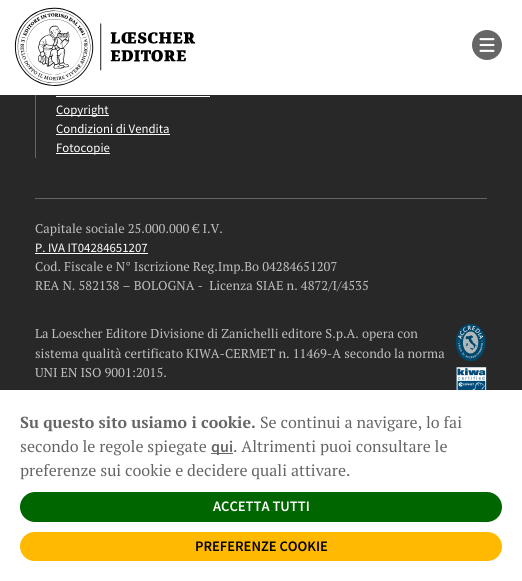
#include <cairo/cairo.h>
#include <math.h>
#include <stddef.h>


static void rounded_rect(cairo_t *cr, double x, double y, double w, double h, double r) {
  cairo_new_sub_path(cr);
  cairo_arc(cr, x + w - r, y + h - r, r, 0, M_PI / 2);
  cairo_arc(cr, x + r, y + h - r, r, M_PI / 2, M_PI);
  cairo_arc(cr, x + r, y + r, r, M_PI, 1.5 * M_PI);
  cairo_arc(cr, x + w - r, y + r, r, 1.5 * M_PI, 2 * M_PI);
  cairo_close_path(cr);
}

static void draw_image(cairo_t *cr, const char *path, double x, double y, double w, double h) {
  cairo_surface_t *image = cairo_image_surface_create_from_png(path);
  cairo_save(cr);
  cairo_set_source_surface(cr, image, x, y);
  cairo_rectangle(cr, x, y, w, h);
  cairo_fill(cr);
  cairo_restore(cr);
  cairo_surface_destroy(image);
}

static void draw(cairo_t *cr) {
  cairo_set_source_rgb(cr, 40 / 255.0, 40 / 255.0, 40 / 255.0);
  cairo_paint(cr);
  cairo_set_source_rgb(cr, 1, 1, 1);
  cairo_rectangle(cr, 0, 0, 522, 95);
  cairo_fill(cr);
  draw_image(cr, "images/1.png", 14, 7, 182, 79);
  draw_image(cr, "images/2.png", 472, 30, 30, 30);
  cairo_set_source_rgb(cr, 100 / 255.0, 100 / 255.0, 100 / 255.0);
  cairo_rectangle(cr, 35, 95, 1, 63);
  cairo_fill(cr);
  cairo_set_source_rgb(cr, 1, 1, 1);
  cairo_rectangle(cr, 56, 96, 154, 1);
  cairo_fill(cr);
  cairo_rectangle(cr, 56, 115, 53, 1);
  cairo_fill(cr);
  cairo_rectangle(cr, 56, 134, 114, 1);
  cairo_fill(cr);
  cairo_rectangle(cr, 56, 153, 54, 1);
  cairo_fill(cr);
  cairo_set_source_rgb(cr, 100 / 255.0, 100 / 255.0, 100 / 255.0);
  cairo_rectangle(cr, 35, 198, 452, 1);
  cairo_fill(cr);
  cairo_set_source_rgb(cr, 1, 1, 1);
  cairo_rectangle(cr, 35, 253, 113, 1);
  cairo_fill(cr);
  draw_image(cr, "images/3.png", 456, 324, 31, 66);
  cairo_rectangle(cr, 0, 390, 522, 191);
  cairo_fill(cr);
  cairo_set_source_rgb(cr, 102 / 255.0, 102 / 255.0, 102 / 255.0);
  cairo_rectangle(cr, 211, 453, 22, 1);
  cairo_fill(cr);
  cairo_set_source_rgb(cr, 0, 103 / 255.0, 0);
  rounded_rect(cr, 20, 492, 482, 30, 15);
  cairo_fill(cr);
  cairo_set_source_rgb(cr, 1, 185 / 255.0, 0);
  rounded_rect(cr, 20, 532, 482, 29, 14.5);
  cairo_fill(cr);
  cairo_select_font_face(cr, "Source Sans Pro", CAIRO_FONT_SLANT_NORMAL, CAIRO_FONT_WEIGHT_NORMAL);
  cairo_set_font_size(cr, 12.8);
  cairo_set_source_rgb(cr, 1, 1, 1);
  cairo_move_to(cr, 56, 114);
  cairo_show_text(cr, "Copyright");
  cairo_move_to(cr, 56, 133);
  cairo_show_text(cr, "Condizioni di Vendita");
  cairo_move_to(cr, 56, 152);
  cairo_show_text(cr, "Fotocopie");
  cairo_select_font_face(cr, "PT Serif", CAIRO_FONT_SLANT_NORMAL, CAIRO_FONT_WEIGHT_NORMAL);
  cairo_set_source_rgb(cr, 191 / 255.0, 191 / 255.0, 191 / 255.0);
  cairo_move_to(cr, 35, 233);
  cairo_show_text(cr, "Capitale sociale 25.000.000 € I.V.");
  cairo_select_font_face(cr, "Source Sans Pro", CAIRO_FONT_SLANT_NORMAL, CAIRO_FONT_WEIGHT_NORMAL);
  cairo_set_source_rgb(cr, 1, 1, 1);
  cairo_move_to(cr, 35, 252);
  cairo_show_text(cr, "P. IVA IT04284651207");
  cairo_select_font_face(cr, "PT Serif", CAIRO_FONT_SLANT_NORMAL, CAIRO_FONT_WEIGHT_NORMAL);
  cairo_set_source_rgb(cr, 191 / 255.0, 191 / 255.0, 191 / 255.0);
  cairo_move_to(cr, 35, 271);
  cairo_show_text(cr, "Cod. Fiscale e N° Iscrizione Reg.Imp.Bo 04284651207");
  cairo_move_to(cr, 35, 290);
  cairo_show_text(cr, "REA N. 582138 – BOLOGNA -  Licenza SIAE n. 4872/I/4535");
  cairo_move_to(cr, 35, 338);
  cairo_show_text(cr, "La Loescher Editore Divisione di Zanichelli editore S.p.A. opera con");
  cairo_move_to(cr, 35, 358);
  cairo_show_text(cr, "sistema qualità certificato KIWA-CERMET n. 11469-A secondo la norma");
  cairo_move_to(cr, 35, 377);
  cairo_show_text(cr, "UNI EN ISO 9001:2015.");
  cairo_select_font_face(cr, "PT Serif", CAIRO_FONT_SLANT_NORMAL, CAIRO_FONT_WEIGHT_BOLD);
  cairo_set_font_size(cr, 16);
  cairo_set_source_rgb(cr, 102 / 255.0, 102 / 255.0, 102 / 255.0);
  cairo_move_to(cr, 20, 428);
  cairo_show_text(cr, "Su questo sito usiamo i cookie.");
  cairo_select_font_face(cr, "PT Serif", CAIRO_FONT_SLANT_NORMAL, CAIRO_FONT_WEIGHT_NORMAL);
  cairo_move_to(cr, 260, 428);
  cairo_show_text(cr, "Se continui a navigare, lo fai");
  cairo_move_to(cr, 20, 452);
  cairo_show_text(cr, "secondo le regole spiegate");
  cairo_select_font_face(cr, "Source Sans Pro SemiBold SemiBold", CAIRO_FONT_SLANT_NORMAL, CAIRO_FONT_WEIGHT_NORMAL);
  cairo_move_to(cr, 211, 452);
  cairo_show_text(cr, "qui");
  cairo_select_font_face(cr, "PT Serif", CAIRO_FONT_SLANT_NORMAL, CAIRO_FONT_WEIGHT_NORMAL);
  cairo_move_to(cr, 233, 452);
  cairo_show_text(cr, ". Altrimenti puoi consultare le");
  cairo_move_to(cr, 20, 476);
  cairo_show_text(cr, "preferenze sui cookie e decidere quali attivare.");
  cairo_select_font_face(cr, "Source Sans Pro SemiBold SemiBold", CAIRO_FONT_SLANT_NORMAL, CAIRO_FONT_WEIGHT_NORMAL);
  cairo_set_font_size(cr, 14.5);
  cairo_set_source_rgb(cr, 1, 1, 1);
  cairo_move_to(cr, 213, 511);
  cairo_show_text(cr, "ACCETTA TUTTI");
  cairo_set_source_rgb(cr, 0, 0, 0);
  cairo_move_to(cr, 195, 551);
  cairo_show_text(cr, "PREFERENZE COOKIE");
}

int main(void) {
  cairo_surface_t *surface = cairo_image_surface_create(CAIRO_FORMAT_RGB24, 522, 581);
  cairo_t *cr = cairo_create(surface);
  cairo_font_options_t *options = cairo_font_options_create();
  cairo_font_options_set_hint_metrics(options, CAIRO_HINT_METRICS_OFF);
  cairo_font_options_set_hint_style(options, CAIRO_HINT_STYLE_NONE);
  cairo_set_font_options(cr, options);
  cairo_set_miter_limit(cr, 4);
  draw(cr);
  cairo_surface_write_to_png(surface, "out.png");
  cairo_font_options_destroy(options);
  cairo_destroy(cr);
  cairo_surface_destroy(surface);
  return 0;
}
